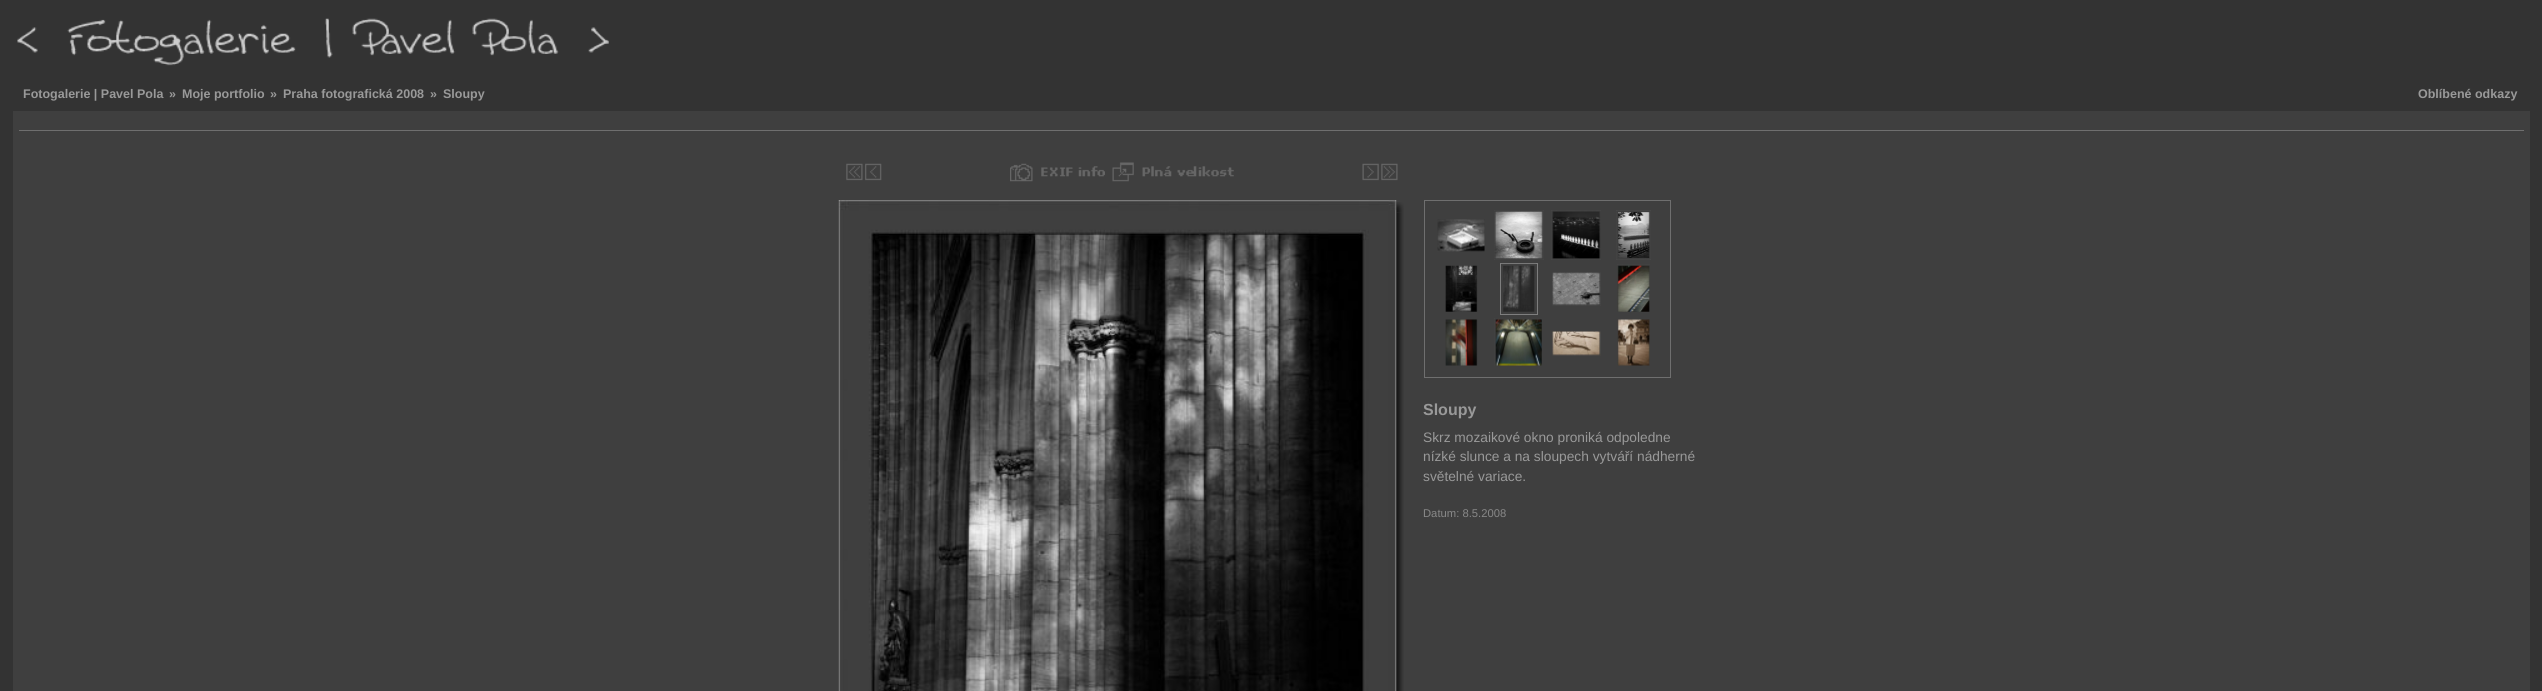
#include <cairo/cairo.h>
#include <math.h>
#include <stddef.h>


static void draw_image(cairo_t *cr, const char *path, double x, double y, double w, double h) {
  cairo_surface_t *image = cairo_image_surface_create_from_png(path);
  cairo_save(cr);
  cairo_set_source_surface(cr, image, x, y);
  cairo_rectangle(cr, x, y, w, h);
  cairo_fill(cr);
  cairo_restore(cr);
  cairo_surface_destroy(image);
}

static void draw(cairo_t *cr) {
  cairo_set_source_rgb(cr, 51 / 255.0, 51 / 255.0, 51 / 255.0);
  cairo_paint(cr);
  draw_image(cr, "images/1.png", 17, 18, 592, 48);
  cairo_set_source_rgb(cr, 63 / 255.0, 63 / 255.0, 63 / 255.0);
  cairo_rectangle(cr, 13, 111, 2517, 580);
  cairo_fill(cr);
  cairo_set_source_rgb(cr, 111 / 255.0, 111 / 255.0, 111 / 255.0);
  cairo_rectangle(cr, 19, 130, 2505, 1);
  cairo_fill(cr);
  draw_image(cr, "images/2.png", 846, 163, 17, 18);
  draw_image(cr, "images/3.png", 865, 163, 17, 18);
  draw_image(cr, "images/4.png", 1010, 163, 95, 19);
  draw_image(cr, "images/5.png", 1112, 162, 122, 20);
  draw_image(cr, "images/6.png", 1362, 163, 17, 18);
  draw_image(cr, "images/7.png", 1381, 163, 17, 18);
  draw_image(cr, "images/9.png", 1396, 202, 8, 11);
  draw_image(cr, "images/10.png", 1396, 212, 8, 479);
  draw_image(cr, "images/8.png", 838, 200, 559, 491);
  cairo_rectangle(cr, 1424.5, 200.5, 246, 177);
  cairo_set_line_width(cr, 1);
  cairo_stroke(cr);
  draw_image(cr, "images/11.png", 1437, 219, 48, 33);
  draw_image(cr, "images/12.png", 1494, 210, 50, 50);
  draw_image(cr, "images/13.png", 1551, 210, 50, 50);
  draw_image(cr, "images/14.png", 1616, 210, 35, 50);
  draw_image(cr, "images/15.png", 1445, 265, 33, 47);
  cairo_rectangle(cr, 1500.5, 263.5, 37, 51);
  cairo_set_source_rgb(cr, 126 / 255.0, 126 / 255.0, 126 / 255.0);
  cairo_stroke(cr);
  draw_image(cr, "images/16.png", 1501, 263, 35, 49);
  draw_image(cr, "images/17.png", 1552, 272, 49, 34);
  draw_image(cr, "images/18.png", 1617, 264, 33, 48);
  draw_image(cr, "images/19.png", 1445, 319, 33, 47);
  draw_image(cr, "images/20.png", 1494, 318, 48, 48);
  draw_image(cr, "images/21.png", 1552, 331, 49, 25);
  draw_image(cr, "images/22.png", 1617, 319, 33, 47);
  cairo_select_font_face(cr, "Liberation Sans", CAIRO_FONT_SLANT_NORMAL, CAIRO_FONT_WEIGHT_BOLD);
  cairo_set_font_size(cr, 12.5);
  cairo_set_source_rgb(cr, 153 / 255.0, 153 / 255.0, 153 / 255.0);
  cairo_move_to(cr, 23, 98);
  cairo_show_text(cr, "Fotogalerie | Pavel Pola");
  cairo_move_to(cr, 169, 98);
  cairo_show_text(cr, "»");
  cairo_move_to(cr, 182, 98);
  cairo_show_text(cr, "Moje portfolio");
  cairo_move_to(cr, 270, 98);
  cairo_show_text(cr, "»");
  cairo_move_to(cr, 283, 98);
  cairo_show_text(cr, "Praha fotografická 2008");
  cairo_move_to(cr, 430, 98);
  cairo_show_text(cr, "»");
  cairo_move_to(cr, 443, 98);
  cairo_show_text(cr, "Sloupy");
  cairo_move_to(cr, 2418, 98);
  cairo_show_text(cr, "Oblíbené odkazy");
  cairo_set_font_size(cr, 16);
  cairo_move_to(cr, 1423, 415);
  cairo_show_text(cr, "Sloupy");
  cairo_select_font_face(cr, "Liberation Sans", CAIRO_FONT_SLANT_NORMAL, CAIRO_FONT_WEIGHT_NORMAL);
  cairo_set_font_size(cr, 13.75);
  cairo_move_to(cr, 1423, 442);
  cairo_show_text(cr, "Skrz mozaikové okno proniká odpoledne");
  cairo_move_to(cr, 1423, 461);
  cairo_show_text(cr, "nízké slunce a na sloupech vytváří nádherné");
  cairo_move_to(cr, 1423, 481);
  cairo_show_text(cr, "světelné variace.");
  cairo_set_font_size(cr, 11.25);
  cairo_set_source_rgb(cr, 136 / 255.0, 136 / 255.0, 136 / 255.0);
  cairo_move_to(cr, 1423, 517);
  cairo_show_text(cr, "Datum: 8.5.2008");
}

int main(void) {
  cairo_surface_t *surface = cairo_image_surface_create(CAIRO_FORMAT_RGB24, 2542, 691);
  cairo_t *cr = cairo_create(surface);
  cairo_font_options_t *options = cairo_font_options_create();
  cairo_font_options_set_hint_metrics(options, CAIRO_HINT_METRICS_OFF);
  cairo_font_options_set_hint_style(options, CAIRO_HINT_STYLE_NONE);
  cairo_set_font_options(cr, options);
  cairo_set_miter_limit(cr, 4);
  draw(cr);
  cairo_surface_write_to_png(surface, "out.png");
  cairo_font_options_destroy(options);
  cairo_destroy(cr);
  cairo_surface_destroy(surface);
  return 0;
}
